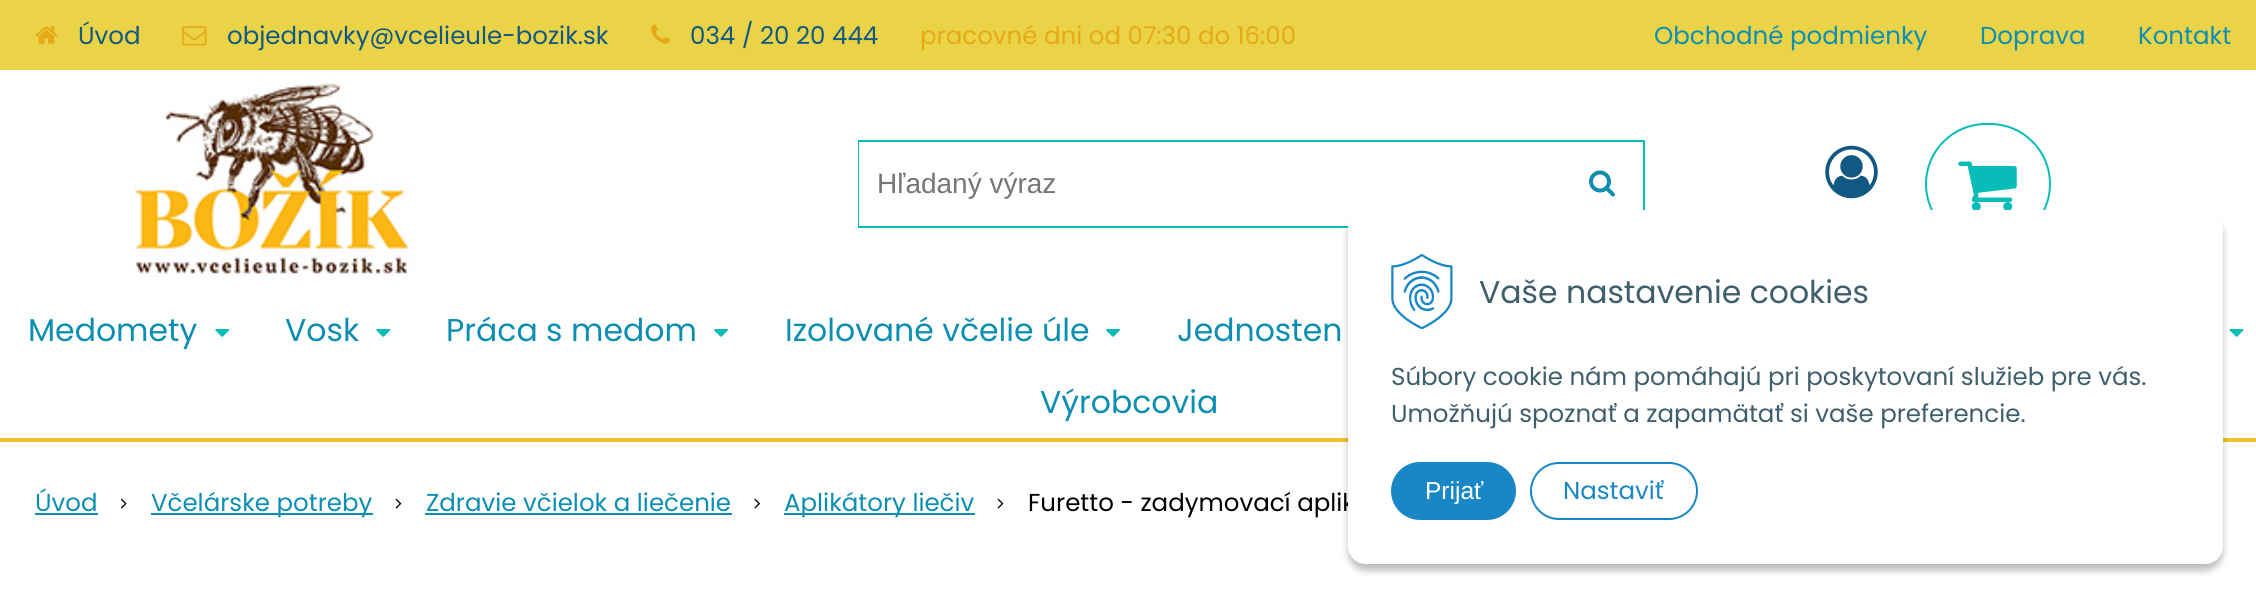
#include <cairo/cairo.h>
#include <math.h>
#include <stddef.h>


static void rounded_rect(cairo_t *cr, double x, double y, double w, double h, double r) {
  cairo_new_sub_path(cr);
  cairo_arc(cr, x + w - r, y + h - r, r, 0, M_PI / 2);
  cairo_arc(cr, x + r, y + h - r, r, M_PI / 2, M_PI);
  cairo_arc(cr, x + r, y + r, r, M_PI, 1.5 * M_PI);
  cairo_arc(cr, x + w - r, y + r, r, 1.5 * M_PI, 2 * M_PI);
  cairo_close_path(cr);
}

static void draw_shadow(cairo_t *cr, double x, double y, double w, double h, double r, double blur, double alpha) {
  cairo_push_group_with_content(cr, CAIRO_CONTENT_ALPHA);
  cairo_set_operator(cr, CAIRO_OPERATOR_SOURCE);
  for (int i = 15; i >= -15 && fmin(w, h) + blur * i / 3 > 0; i -= 2) {
    double e = blur * i / 6;
    cairo_set_source_rgba(cr, 0, 0, 0, alpha * erfc((i - 1) / 8.5) / 2);
    rounded_rect(cr, x - e, y - e, w + 2 * e, h + 2 * e, fmax(0, fmin(r + e + blur * .6, fmin(w, h) / 2 + e)));
    cairo_fill(cr);
  }
  cairo_pattern_t *soft = cairo_pop_group(cr);
  cairo_mask(cr, soft);
  cairo_pattern_destroy(soft);
}

static void draw_image(cairo_t *cr, const char *path, double x, double y, double w, double h) {
  cairo_surface_t *image = cairo_image_surface_create_from_png(path);
  cairo_save(cr);
  cairo_set_source_surface(cr, image, x, y);
  cairo_rectangle(cr, x, y, w, h);
  cairo_fill(cr);
  cairo_restore(cr);
  cairo_surface_destroy(image);
}

static void draw(cairo_t *cr) {
  cairo_set_source_rgb(cr, 1, 1, 1);
  cairo_paint(cr);
  cairo_set_source_rgb(cr, 234 / 255.0, 211 / 255.0, 71 / 255.0);
  cairo_rectangle(cr, 0, 0, 2256, 70);
  cairo_fill(cr);
  draw_image(cr, "images/1.png", 35, 26, 23, 18);
  draw_image(cr, "images/2.png", 182, 26, 25, 20);
  draw_image(cr, "images/3.png", 651, 24, 20, 20);
  draw_image(cr, "images/4.png", 133, 83, 283, 195);
  cairo_rectangle(cr, 859, 141, 785, 86);
  cairo_set_source_rgb(cr, 8 / 255.0, 189 / 255.0, 184 / 255.0);
  cairo_stroke(cr);
  cairo_set_source_rgb(cr, 1, 1, 1);
  cairo_rectangle(cr, 859, 142, 1, 84);
  cairo_fill(cr);
  draw_image(cr, "images/5.png", 1589, 170, 26, 27);
  draw_image(cr, "images/6.png", 1825, 145, 53, 54);
  rounded_rect(cr, 1926, 124, 124, 120, 60);
  cairo_set_source_rgb(cr, 8 / 255.0, 189 / 255.0, 184 / 255.0);
  cairo_stroke(cr);
  draw_image(cr, "images/7.png", 1958, 161, 59, 49);
  cairo_set_source_rgb(cr, 242 / 255.0, 192 / 255.0, 44 / 255.0);
  cairo_rectangle(cr, 0, 438, 2256, 4);
  cairo_fill(cr);
  draw_image(cr, "images/8.png", 215, 329, 15, 8);
  draw_image(cr, "images/8.png", 376, 329, 15, 8);
  draw_image(cr, "images/9.png", 714, 329, 14, 8);
  draw_image(cr, "images/9.png", 1106, 329, 14, 8);
  draw_image(cr, "images/10.png", 2229, 329, 15, 8);
  cairo_set_source_rgb(cr, 12 / 255.0, 142 / 255.0, 178 / 255.0);
  cairo_rectangle(cr, 35, 513, 63, 2);
  cairo_fill(cr);
  draw_image(cr, "images/11.png", 120, 498, 7, 11);
  cairo_rectangle(cr, 151, 513, 222, 2);
  cairo_fill(cr);
  draw_image(cr, "images/12.png", 395, 498, 7, 11);
  cairo_rectangle(cr, 425, 513, 307, 2);
  cairo_fill(cr);
  draw_image(cr, "images/13.png", 754, 498, 6, 11);
  cairo_rectangle(cr, 784, 513, 191, 2);
  cairo_fill(cr);
  draw_image(cr, "images/14.png", 997, 498, 7, 11);
  cairo_set_source_rgb(cr, 0, 0, 0);
  draw_shadow(cr, 1348, 217, 875, 354, 18, 3.5, 0.25);
  cairo_select_font_face(cr, "Poppins", CAIRO_FONT_SLANT_NORMAL, CAIRO_FONT_WEIGHT_NORMAL);
  cairo_set_font_size(cr, 24.5);
  cairo_set_source_rgb(cr, 17 / 255.0, 88 / 255.0, 130 / 255.0);
  cairo_move_to(cr, 78, 44);
  cairo_show_text(cr, "Úvod");
  cairo_move_to(cr, 227, 44);
  cairo_show_text(cr, "objednavky@vcelieule-bozik.sk");
  cairo_move_to(cr, 690, 44);
  cairo_show_text(cr, "034 / 20 20 444");
  cairo_set_source_rgb(cr, 231 / 255.0, 169 / 255.0, 22 / 255.0);
  cairo_move_to(cr, 920, 44);
  cairo_show_text(cr, "pracovné dni od 07:30 do 16:00");
  cairo_set_source_rgb(cr, 12 / 255.0, 142 / 255.0, 178 / 255.0);
  cairo_move_to(cr, 1654, 44);
  cairo_show_text(cr, "Obchodné podmienky");
  cairo_move_to(cr, 1980, 44);
  cairo_show_text(cr, "Doprava");
  cairo_move_to(cr, 2138, 44);
  cairo_show_text(cr, "Kontakt");
  cairo_select_font_face(cr, "Liberation Sans", CAIRO_FONT_SLANT_NORMAL, CAIRO_FONT_WEIGHT_NORMAL);
  cairo_set_font_size(cr, 28);
  cairo_set_source_rgb(cr, 117 / 255.0, 117 / 255.0, 117 / 255.0);
  cairo_move_to(cr, 877, 193);
  cairo_show_text(cr, "Hľadaný výraz");
  cairo_select_font_face(cr, "Poppins", CAIRO_FONT_SLANT_NORMAL, CAIRO_FONT_WEIGHT_NORMAL);
  cairo_set_font_size(cr, 31.5);
  cairo_set_source_rgb(cr, 12 / 255.0, 142 / 255.0, 178 / 255.0);
  cairo_move_to(cr, 28, 341);
  cairo_show_text(cr, "Medomety");
  cairo_move_to(cr, 285, 341);
  cairo_show_text(cr, "Vosk");
  cairo_move_to(cr, 446, 341);
  cairo_show_text(cr, "Práca s medom");
  cairo_move_to(cr, 785, 341);
  cairo_show_text(cr, "Izolované včelie úle");
  cairo_move_to(cr, 1177, 341);
  cairo_show_text(cr, "Jednosten");
  cairo_move_to(cr, 1040, 413);
  cairo_show_text(cr, "Výrobcovia");
  cairo_set_font_size(cr, 24.5);
  cairo_move_to(cr, 35, 511);
  cairo_show_text(cr, "Úvod");
  cairo_move_to(cr, 151, 511);
  cairo_show_text(cr, "Včelárske potreby");
  cairo_move_to(cr, 426, 511);
  cairo_show_text(cr, "Zdravie včielok a liečenie");
  cairo_move_to(cr, 784, 511);
  cairo_show_text(cr, "Aplikátory liečiv");
  cairo_set_source_rgb(cr, 0, 0, 0);
  cairo_move_to(cr, 1028, 511);
  cairo_show_text(cr, "Furetto - zadymovací aplik");
  cairo_set_source_rgb(cr, 1, 1, 1);
  rounded_rect(cr, 1348, 210, 875, 354, 18);
  cairo_fill(cr);
  draw_image(cr, "images/15.png", 1391, 254, 62, 75);
  cairo_set_font_size(cr, 31.5);
  cairo_set_source_rgb(cr, 63 / 255.0, 94 / 255.0, 108 / 255.0);
  cairo_move_to(cr, 1479, 303);
  cairo_show_text(cr, "Vaše nastavenie cookies");
  cairo_set_font_size(cr, 24.5);
  cairo_move_to(cr, 1391, 385);
  cairo_show_text(cr, "Súbory cookie nám pomáhajú pri poskytovaní služieb pre vás.");
  cairo_move_to(cr, 1391, 422);
  cairo_show_text(cr, "Umožňujú spoznať a zapamätať si vaše preferencie.");
  cairo_set_source_rgb(cr, 25 / 255.0, 135 / 255.0, 198 / 255.0);
  rounded_rect(cr, 1392, 463, 123, 56, 28);
  cairo_fill_preserve(cr);
  cairo_stroke(cr);
  cairo_select_font_face(cr, "Liberation Sans", CAIRO_FONT_SLANT_NORMAL, CAIRO_FONT_WEIGHT_NORMAL);
  cairo_set_source_rgb(cr, 1, 1, 1);
  cairo_move_to(cr, 1425, 499);
  cairo_show_text(cr, "Prijať");
  rounded_rect(cr, 1531, 463, 166, 56, 28);
  cairo_set_source_rgb(cr, 25 / 255.0, 135 / 255.0, 198 / 255.0);
  cairo_stroke(cr);
  cairo_select_font_face(cr, "Poppins", CAIRO_FONT_SLANT_NORMAL, CAIRO_FONT_WEIGHT_NORMAL);
  cairo_move_to(cr, 1563, 499);
  cairo_show_text(cr, "Nastaviť");
}

int main(void) {
  cairo_surface_t *surface = cairo_image_surface_create(CAIRO_FORMAT_RGB24, 2256, 597);
  cairo_t *cr = cairo_create(surface);
  cairo_font_options_t *options = cairo_font_options_create();
  cairo_font_options_set_hint_metrics(options, CAIRO_HINT_METRICS_OFF);
  cairo_font_options_set_hint_style(options, CAIRO_HINT_STYLE_NONE);
  cairo_set_font_options(cr, options);
  cairo_set_miter_limit(cr, 4);
  draw(cr);
  cairo_surface_write_to_png(surface, "out.png");
  cairo_font_options_destroy(options);
  cairo_destroy(cr);
  cairo_surface_destroy(surface);
  return 0;
}
